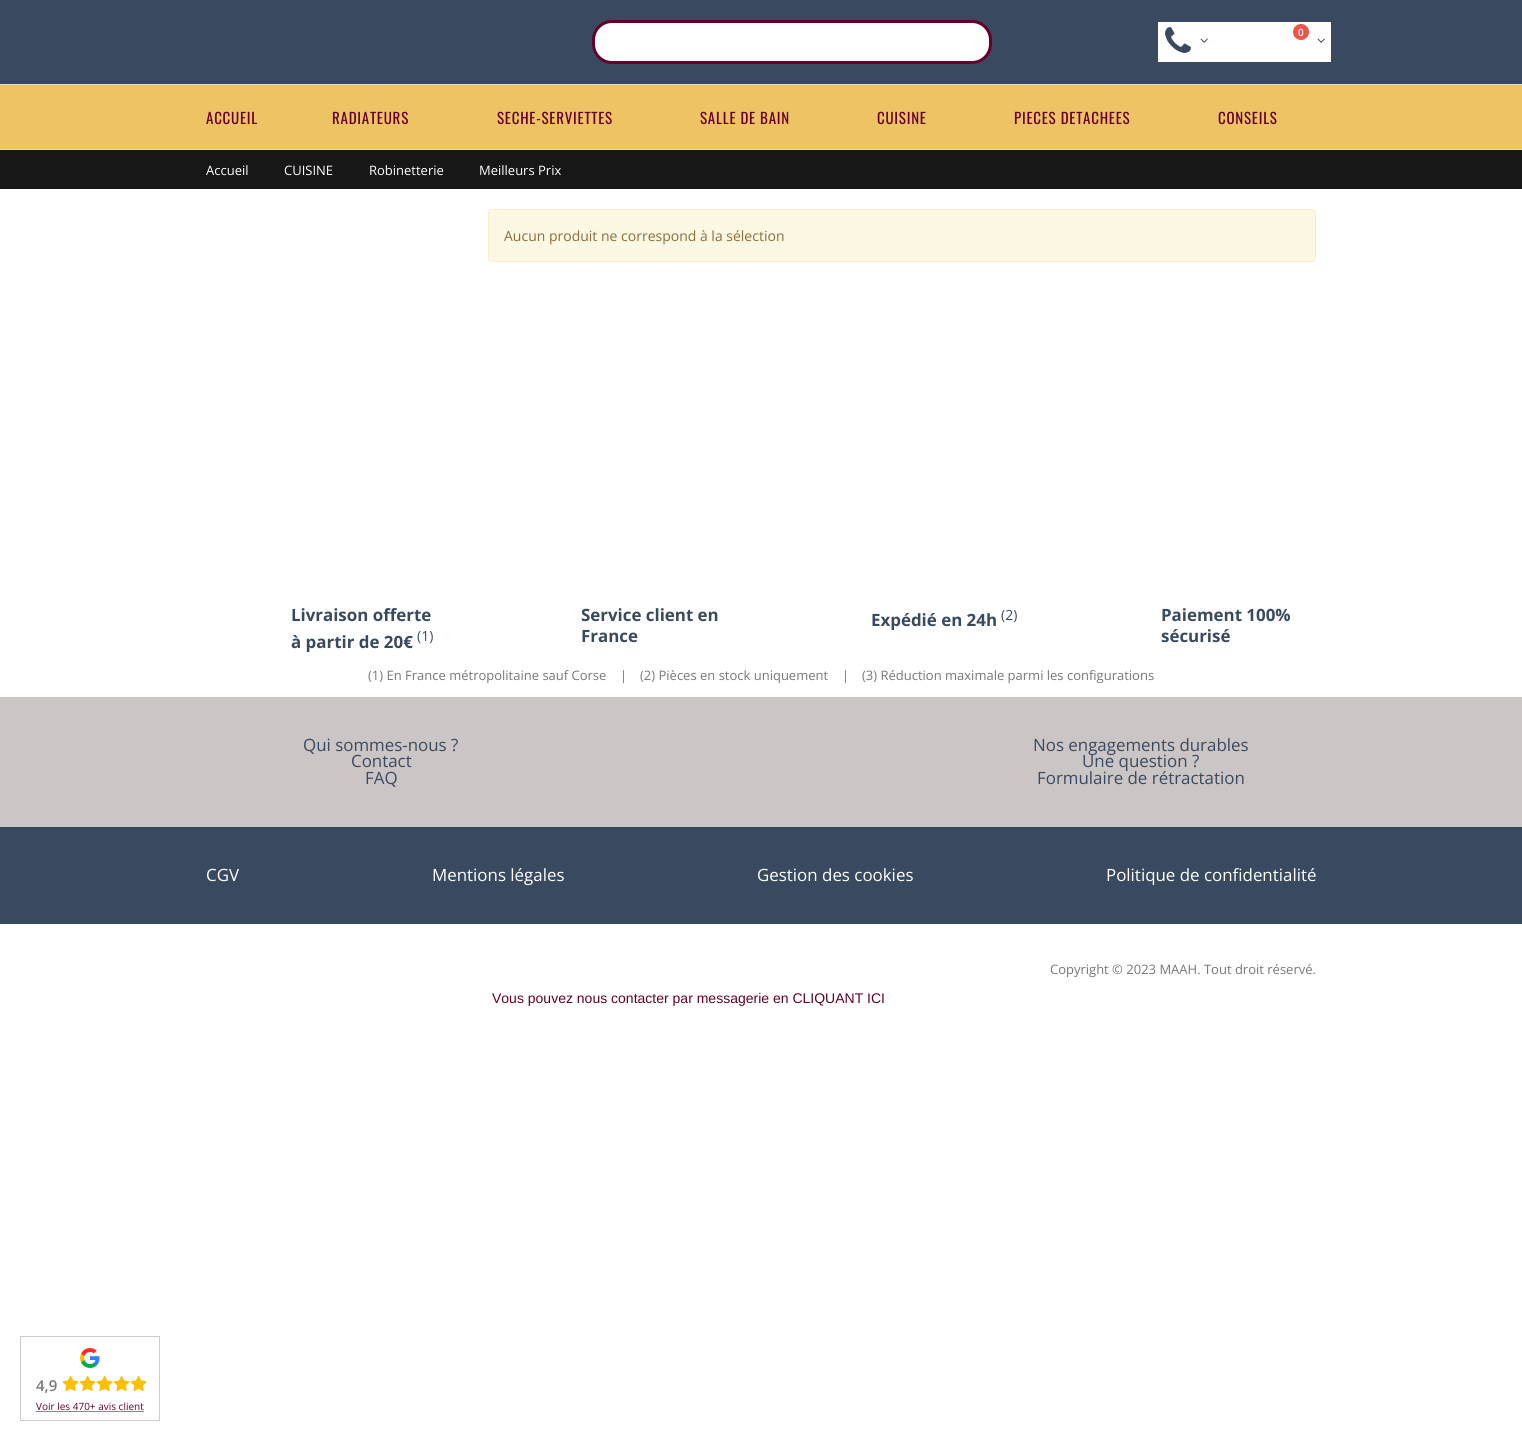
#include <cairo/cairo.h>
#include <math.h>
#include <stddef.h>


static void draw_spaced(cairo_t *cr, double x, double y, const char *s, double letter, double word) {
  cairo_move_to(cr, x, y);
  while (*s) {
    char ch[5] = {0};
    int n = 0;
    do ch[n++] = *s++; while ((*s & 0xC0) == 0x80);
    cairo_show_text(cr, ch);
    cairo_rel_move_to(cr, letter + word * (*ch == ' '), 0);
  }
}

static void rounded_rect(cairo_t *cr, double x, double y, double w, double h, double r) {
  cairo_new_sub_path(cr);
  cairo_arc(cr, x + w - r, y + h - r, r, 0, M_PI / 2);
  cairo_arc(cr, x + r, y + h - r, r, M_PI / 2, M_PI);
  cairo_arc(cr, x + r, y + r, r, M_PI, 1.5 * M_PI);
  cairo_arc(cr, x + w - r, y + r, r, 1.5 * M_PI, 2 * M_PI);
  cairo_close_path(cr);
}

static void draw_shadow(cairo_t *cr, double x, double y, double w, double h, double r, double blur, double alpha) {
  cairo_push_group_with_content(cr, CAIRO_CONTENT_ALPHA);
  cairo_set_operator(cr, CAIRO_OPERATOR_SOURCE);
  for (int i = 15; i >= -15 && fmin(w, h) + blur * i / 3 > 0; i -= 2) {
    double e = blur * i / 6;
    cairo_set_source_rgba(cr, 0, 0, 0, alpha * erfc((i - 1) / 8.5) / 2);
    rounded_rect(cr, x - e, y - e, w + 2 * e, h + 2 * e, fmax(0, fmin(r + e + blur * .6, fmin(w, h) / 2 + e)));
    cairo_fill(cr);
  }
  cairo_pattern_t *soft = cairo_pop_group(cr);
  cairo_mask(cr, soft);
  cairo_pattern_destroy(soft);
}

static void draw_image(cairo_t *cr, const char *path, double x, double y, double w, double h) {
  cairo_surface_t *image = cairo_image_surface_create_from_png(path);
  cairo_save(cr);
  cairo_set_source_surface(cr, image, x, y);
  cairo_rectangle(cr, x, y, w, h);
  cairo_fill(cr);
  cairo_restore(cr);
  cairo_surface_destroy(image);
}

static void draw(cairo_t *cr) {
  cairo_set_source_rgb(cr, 1, 1, 1);
  cairo_paint(cr);
  cairo_set_source_rgb(cr, 57 / 255.0, 74 / 255.0, 96 / 255.0);
  cairo_rectangle(cr, 0, 0, 1522, 84);
  cairo_fill(cr);
  cairo_set_source_rgb(cr, 1, 1, 1);
  rounded_rect(cr, 593.5, 21.5, 397, 41, 18.5);
  cairo_fill_preserve(cr);
  cairo_set_source_rgb(cr, 100 / 255.0, 0, 41 / 255.0);
  cairo_set_line_width(cr, 3);
  cairo_stroke(cr);
  cairo_set_source_rgb(cr, 1, 1, 1);
  cairo_rectangle(cr, 1158, 22, 173, 40);
  cairo_fill(cr);
  draw_image(cr, "images/1.png", 1165, 27, 26, 26);
  draw_image(cr, "images/2.png", 1200, 38, 8, 5);
  cairo_set_source_rgb(cr, 237 / 255.0, 83 / 255.0, 72 / 255.0);
  cairo_arc(cr, 1301, 32, 8, 0, 2 * M_PI);
  cairo_fill(cr);
  draw_image(cr, "images/2.png", 1317, 38, 8, 5);
  cairo_set_source_rgb(cr, 0, 0, 0);
  draw_shadow(cr, 0, 85, 1522, 66, 0, 2.5, 0.1);
  cairo_set_source_rgb(cr, 238 / 255.0, 195 / 255.0, 100 / 255.0);
  cairo_rectangle(cr, 0, 85, 1522, 64);
  cairo_fill(cr);
  cairo_set_source_rgb(cr, 219 / 255.0, 219 / 255.0, 219 / 255.0);
  cairo_rectangle(cr, 0, 84, 1522, 1);
  cairo_fill(cr);
  cairo_rectangle(cr, 0, 149, 1522, 1);
  cairo_fill(cr);
  cairo_set_source_rgb(cr, 23 / 255.0, 23 / 255.0, 23 / 255.0);
  cairo_rectangle(cr, 0, 150, 1522, 39);
  cairo_fill(cr);
  cairo_set_source_rgb(cr, 252 / 255.0, 248 / 255.0, 227 / 255.0);
  rounded_rect(cr, 488.5, 209.5, 827, 52, 3.5);
  cairo_fill_preserve(cr);
  cairo_set_source_rgb(cr, 250 / 255.0, 235 / 255.0, 204 / 255.0);
  cairo_set_line_width(cr, 1);
  cairo_stroke(cr);
  cairo_set_source_rgb(cr, 203 / 255.0, 197 / 255.0, 197 / 255.0);
  cairo_rectangle(cr, 0, 697, 1522, 130);
  cairo_fill(cr);
  cairo_set_source_rgb(cr, 57 / 255.0, 74 / 255.0, 96 / 255.0);
  cairo_rectangle(cr, 0, 827, 1522, 97);
  cairo_fill(cr);
  cairo_rectangle(cr, 20.5, 1336.5, 139, 84);
  cairo_set_source_rgb(cr, 204 / 255.0, 204 / 255.0, 204 / 255.0);
  cairo_stroke(cr);
  draw_image(cr, "images/3.png", 80, 1348, 20, 20);
  draw_image(cr, "images/4.png", 62, 1375, 17, 16);
  draw_image(cr, "images/4.png", 79, 1375, 17, 16);
  draw_image(cr, "images/4.png", 96, 1375, 17, 16);
  draw_image(cr, "images/4.png", 113, 1375, 17, 16);
  draw_image(cr, "images/4.png", 130, 1375, 17, 16);
  cairo_set_source_rgb(cr, 136 / 255.0, 136 / 255.0, 136 / 255.0);
  cairo_rectangle(cr, 36, 1411, 108, 1);
  cairo_fill(cr);
  cairo_select_font_face(cr, "Open Sans SemiBold", CAIRO_FONT_SLANT_NORMAL, CAIRO_FONT_WEIGHT_NORMAL);
  cairo_set_font_size(cr, 10);
  cairo_set_source_rgb(cr, 1, 1, 1);
  cairo_move_to(cr, 1298, 36);
  cairo_show_text(cr, "0");
  cairo_select_font_face(cr, "Oswald", CAIRO_FONT_SLANT_NORMAL, CAIRO_FONT_WEIGHT_NORMAL);
  cairo_set_font_size(cr, 15);
  cairo_set_source_rgb(cr, 100 / 255.0, 0, 41 / 255.0);
  draw_spaced(cr, 206, 124, "ACCUEIL", 0.75, 0);
  draw_spaced(cr, 332, 124, "RADIATEURS", 0.75, 0);
  draw_spaced(cr, 497, 124, "SECHE-SERVIETTES", 0.75, 0);
  draw_spaced(cr, 700, 124, "SALLE DE BAIN", 0.75, 0);
  draw_spaced(cr, 877, 124, "CUISINE", 0.75, 0);
  draw_spaced(cr, 1014, 124, "PIECES DETACHEES", 0.75, 0);
  draw_spaced(cr, 1218, 124, "CONSEILS", 0.75, 0);
  cairo_select_font_face(cr, "Open Sans", CAIRO_FONT_SLANT_NORMAL, CAIRO_FONT_WEIGHT_NORMAL);
  cairo_set_font_size(cr, 13);
  cairo_set_source_rgb(cr, 1, 1, 1);
  cairo_move_to(cr, 206, 175);
  cairo_show_text(cr, "Accueil");
  cairo_move_to(cr, 284, 175);
  cairo_show_text(cr, "CUISINE");
  cairo_move_to(cr, 369, 175);
  cairo_show_text(cr, "Robinetterie");
  cairo_move_to(cr, 479, 175);
  cairo_show_text(cr, "Meilleurs Prix");
  cairo_set_font_size(cr, 14);
  cairo_set_source_rgb(cr, 138 / 255.0, 109 / 255.0, 59 / 255.0);
  cairo_move_to(cr, 504, 241);
  cairo_show_text(cr, "Aucun produit ne correspond à la sélection");
  cairo_select_font_face(cr, "Open Sans", CAIRO_FONT_SLANT_NORMAL, CAIRO_FONT_WEIGHT_BOLD);
  cairo_set_font_size(cr, 16.9);
  cairo_set_source_rgb(cr, 57 / 255.0, 74 / 255.0, 96 / 255.0);
  cairo_move_to(cr, 291, 621);
  cairo_show_text(cr, "Livraison offerte");
  cairo_move_to(cr, 291, 648);
  cairo_show_text(cr, "à partir de 20€");
  cairo_select_font_face(cr, "Open Sans", CAIRO_FONT_SLANT_NORMAL, CAIRO_FONT_WEIGHT_NORMAL);
  cairo_set_font_size(cr, 14);
  cairo_move_to(cr, 417, 641);
  cairo_show_text(cr, "(1)");
  cairo_select_font_face(cr, "Open Sans", CAIRO_FONT_SLANT_NORMAL, CAIRO_FONT_WEIGHT_BOLD);
  cairo_set_font_size(cr, 16.9);
  cairo_move_to(cr, 581, 621);
  cairo_show_text(cr, "Service client en");
  cairo_move_to(cr, 581, 642);
  cairo_show_text(cr, "France");
  cairo_move_to(cr, 871, 626);
  cairo_show_text(cr, "Expédié en 24h");
  cairo_select_font_face(cr, "Open Sans", CAIRO_FONT_SLANT_NORMAL, CAIRO_FONT_WEIGHT_NORMAL);
  cairo_set_font_size(cr, 14);
  cairo_move_to(cr, 1001, 620);
  cairo_show_text(cr, "(2)");
  cairo_select_font_face(cr, "Open Sans", CAIRO_FONT_SLANT_NORMAL, CAIRO_FONT_WEIGHT_BOLD);
  cairo_set_font_size(cr, 16.9);
  cairo_move_to(cr, 1161, 621);
  cairo_show_text(cr, "Paiement 100%");
  cairo_move_to(cr, 1161, 642);
  cairo_show_text(cr, "sécurisé");
  cairo_select_font_face(cr, "Open Sans", CAIRO_FONT_SLANT_NORMAL, CAIRO_FONT_WEIGHT_NORMAL);
  cairo_set_font_size(cr, 13);
  cairo_set_source_rgb(cr, 119 / 255.0, 119 / 255.0, 119 / 255.0);
  cairo_move_to(cr, 368, 680);
  cairo_show_text(cr, "(1) En France métropolitaine sauf Corse");
  cairo_move_to(cr, 620, 680);
  cairo_show_text(cr, "|");
  cairo_move_to(cr, 640, 680);
  cairo_show_text(cr, "(2) Pièces en stock uniquement");
  cairo_move_to(cr, 842, 680);
  cairo_show_text(cr, "|");
  cairo_move_to(cr, 862, 680);
  cairo_show_text(cr, "(3) Réduction maximale parmi les configurations");
  cairo_set_font_size(cr, 16.9);
  cairo_set_source_rgb(cr, 57 / 255.0, 74 / 255.0, 96 / 255.0);
  cairo_move_to(cr, 303, 751);
  cairo_show_text(cr, "Qui sommes-nous ?");
  cairo_move_to(cr, 351, 767);
  cairo_show_text(cr, "Contact");
  cairo_move_to(cr, 365, 784);
  cairo_show_text(cr, "FAQ");
  cairo_move_to(cr, 1033, 751);
  cairo_show_text(cr, "Nos engagements durables");
  cairo_move_to(cr, 1082, 767);
  cairo_show_text(cr, "Une question ?");
  cairo_move_to(cr, 1037, 784);
  cairo_show_text(cr, "Formulaire de rétractation");
  cairo_set_source_rgb(cr, 1, 1, 1);
  cairo_move_to(cr, 206, 881);
  cairo_show_text(cr, "CGV");
  cairo_move_to(cr, 432, 881);
  cairo_show_text(cr, "Mentions légales");
  cairo_move_to(cr, 757, 881);
  cairo_show_text(cr, "Gestion des cookies");
  cairo_move_to(cr, 1106, 881);
  cairo_show_text(cr, "Politique de confidentialité");
  cairo_set_font_size(cr, 13);
  cairo_set_source_rgb(cr, 119 / 255.0, 119 / 255.0, 119 / 255.0);
  cairo_move_to(cr, 1050, 974);
  cairo_show_text(cr, "Copyright © 2023 MAAH. Tout droit réservé.");
  cairo_select_font_face(cr, "Liberation Sans", CAIRO_FONT_SLANT_NORMAL, CAIRO_FONT_WEIGHT_NORMAL);
  cairo_set_font_size(cr, 14);
  cairo_set_source_rgb(cr, 100 / 255.0, 0, 41 / 255.0);
  cairo_move_to(cr, 492, 1003);
  cairo_show_text(cr, "Vous pouvez nous contacter par messagerie en CLIQUANT ICI");
  cairo_select_font_face(cr, "Open Sans SemiBold", CAIRO_FONT_SLANT_NORMAL, CAIRO_FONT_WEIGHT_NORMAL);
  cairo_set_font_size(cr, 15);
  cairo_set_source_rgb(cr, 119 / 255.0, 119 / 255.0, 119 / 255.0);
  cairo_move_to(cr, 36, 1391);
  cairo_show_text(cr, "4,9");
  cairo_select_font_face(cr, "Open Sans", CAIRO_FONT_SLANT_NORMAL, CAIRO_FONT_WEIGHT_NORMAL);
  cairo_set_font_size(cr, 10);
  cairo_set_source_rgb(cr, 100 / 255.0, 0, 41 / 255.0);
  cairo_move_to(cr, 36, 1410);
  cairo_show_text(cr, "Voir les 470+ avis client");
}

int main(void) {
  cairo_surface_t *surface = cairo_image_surface_create(CAIRO_FORMAT_RGB24, 1522, 1441);
  cairo_t *cr = cairo_create(surface);
  cairo_font_options_t *options = cairo_font_options_create();
  cairo_font_options_set_hint_metrics(options, CAIRO_HINT_METRICS_OFF);
  cairo_font_options_set_hint_style(options, CAIRO_HINT_STYLE_NONE);
  cairo_set_font_options(cr, options);
  cairo_set_miter_limit(cr, 4);
  draw(cr);
  cairo_surface_write_to_png(surface, "out.png");
  cairo_font_options_destroy(options);
  cairo_destroy(cr);
  cairo_surface_destroy(surface);
  return 0;
}
